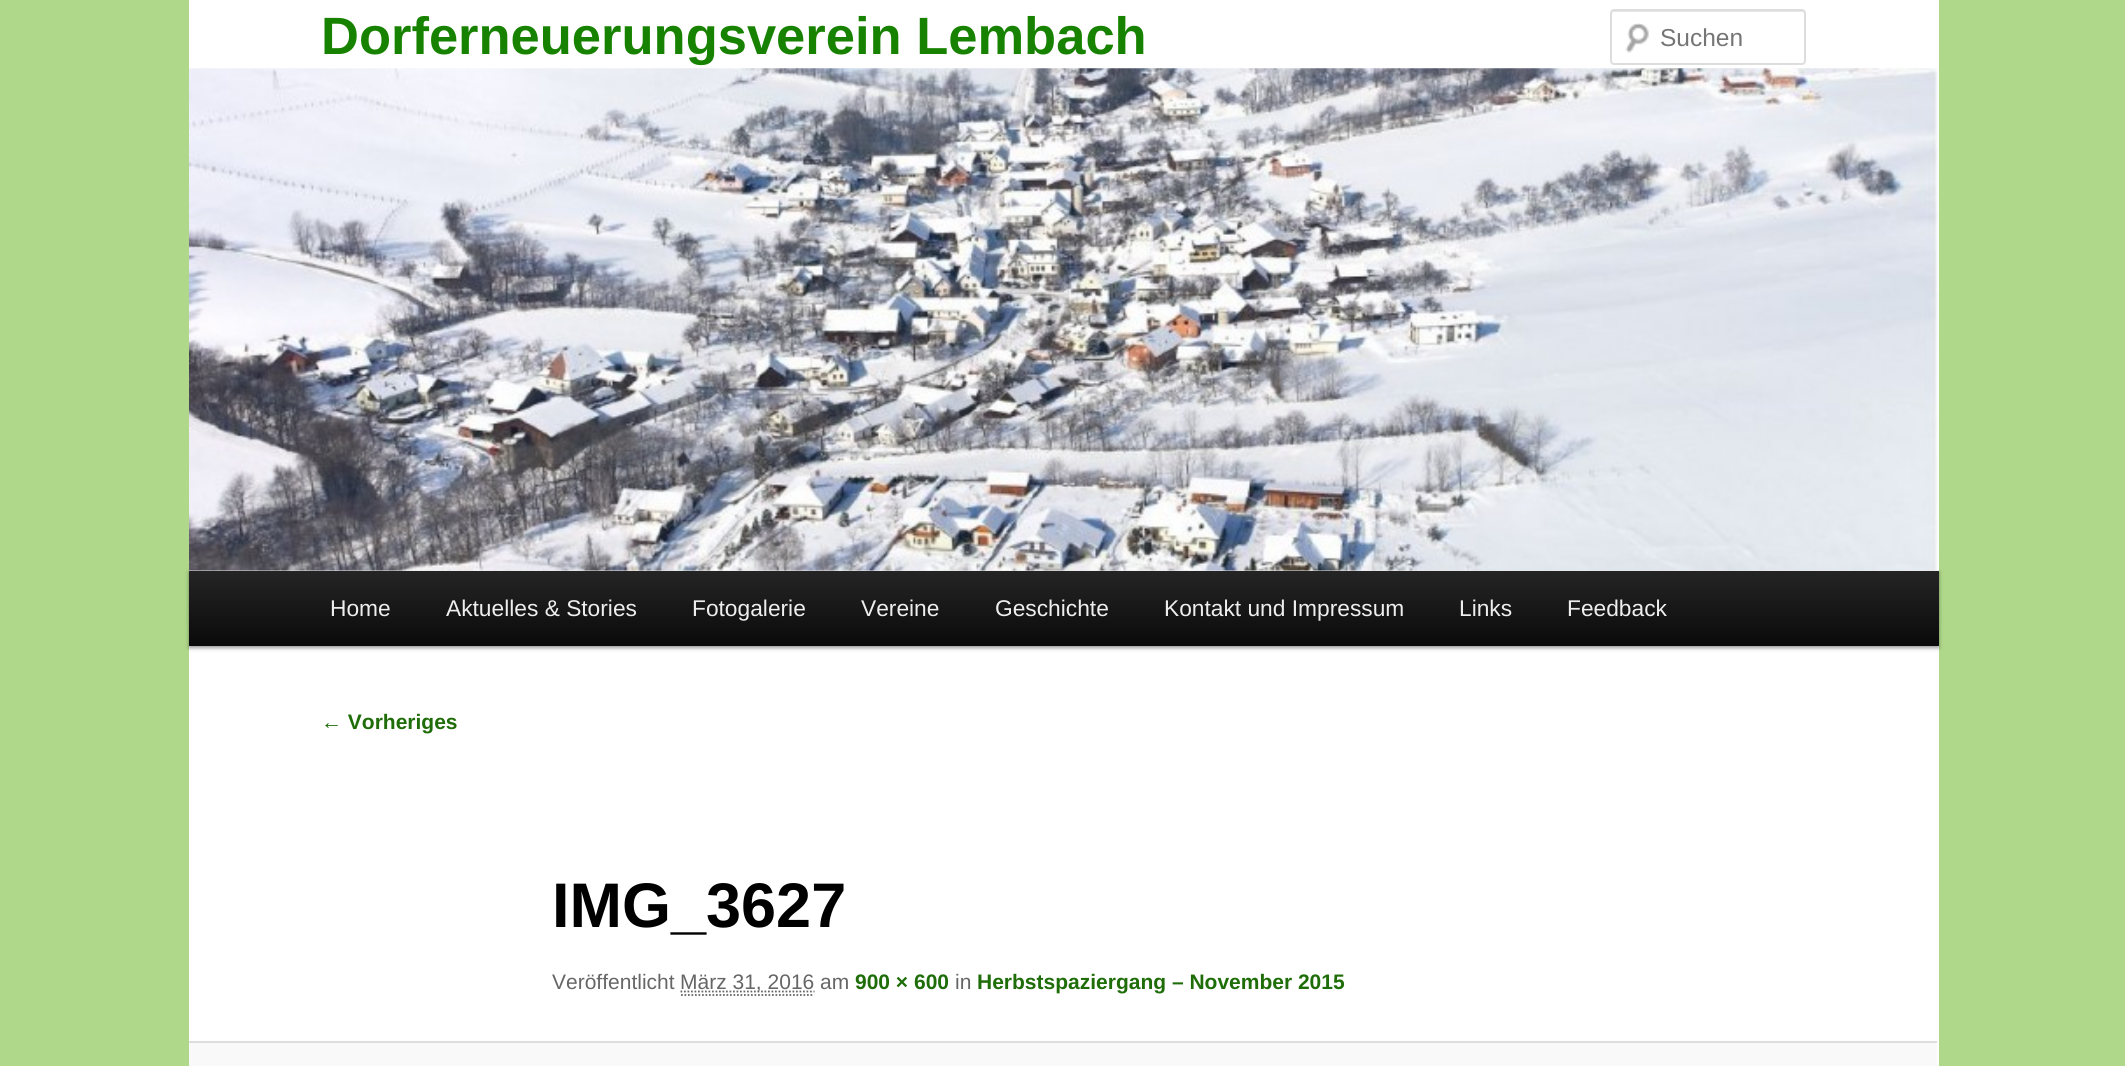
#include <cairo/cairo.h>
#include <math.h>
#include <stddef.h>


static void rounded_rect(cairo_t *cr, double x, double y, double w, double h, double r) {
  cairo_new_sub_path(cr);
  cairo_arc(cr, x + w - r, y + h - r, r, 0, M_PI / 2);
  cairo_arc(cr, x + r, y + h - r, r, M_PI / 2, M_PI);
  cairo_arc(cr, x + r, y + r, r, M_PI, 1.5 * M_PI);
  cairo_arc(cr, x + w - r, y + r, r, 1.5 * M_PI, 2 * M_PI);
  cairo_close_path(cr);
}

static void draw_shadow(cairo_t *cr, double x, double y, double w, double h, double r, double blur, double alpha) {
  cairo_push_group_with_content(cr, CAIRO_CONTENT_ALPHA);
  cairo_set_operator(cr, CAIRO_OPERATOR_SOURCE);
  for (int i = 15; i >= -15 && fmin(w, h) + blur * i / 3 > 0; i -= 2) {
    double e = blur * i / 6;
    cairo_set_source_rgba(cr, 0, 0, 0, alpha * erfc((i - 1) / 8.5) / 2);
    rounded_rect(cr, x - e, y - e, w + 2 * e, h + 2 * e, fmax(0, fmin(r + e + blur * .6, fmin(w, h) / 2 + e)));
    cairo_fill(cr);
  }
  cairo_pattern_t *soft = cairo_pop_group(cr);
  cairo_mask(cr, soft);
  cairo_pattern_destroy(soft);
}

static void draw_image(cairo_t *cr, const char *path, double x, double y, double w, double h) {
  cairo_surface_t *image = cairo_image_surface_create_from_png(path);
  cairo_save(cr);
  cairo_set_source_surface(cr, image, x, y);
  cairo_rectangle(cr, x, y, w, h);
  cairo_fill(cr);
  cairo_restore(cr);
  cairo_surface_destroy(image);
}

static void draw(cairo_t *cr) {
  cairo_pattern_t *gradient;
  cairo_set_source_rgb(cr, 176 / 255.0, 216 / 255.0, 138 / 255.0);
  cairo_paint(cr);
  cairo_set_source_rgb(cr, 1, 1, 1);
  cairo_rectangle(cr, 189, 0, 1750, 1066);
  cairo_fill(cr);
  draw_image(cr, "images/1.png", 1625, 23, 24, 30);
  cairo_set_source_rgb(cr, 230 / 255.0, 230 / 255.0, 230 / 255.0);
  cairo_new_path(cr);
  cairo_move_to(cr, 1614, 12);
  cairo_line_to(cr, 1802, 12);
  cairo_line_to(cr, 1804, 13);
  cairo_line_to(cr, 1804, 14);
  cairo_line_to(cr, 1804, 13);
  cairo_curve_to(cr, 1804, 12, 1803, 11, 1802, 11);
  cairo_line_to(cr, 1614, 11);
  cairo_curve_to(cr, 1613, 11, 1612, 12, 1612, 13);
  cairo_line_to(cr, 1612, 14);
  cairo_curve_to(cr, 1612, 13, 1613, 12, 1614, 12);
  cairo_close_path(cr);
  cairo_fill(cr);
  rounded_rect(cr, 1611, 10, 194, 54, 3);
  cairo_set_source_rgb(cr, 221 / 255.0, 221 / 255.0, 221 / 255.0);
  cairo_stroke(cr);
  cairo_set_source_rgb(cr, 0, 0, 0);
  draw_shadow(cr, 189, 572, 1750, 76, 0, 2, 0.4);
  draw_image(cr, "images/2.png", 189, 68, 1750, 503);
  gradient = cairo_pattern_create_linear(1064, 570, 1064, 646);
  cairo_pattern_add_color_stop_rgba(gradient, 0, 37 / 255.0, 37 / 255.0, 37 / 255.0, 1);
  cairo_pattern_add_color_stop_rgba(gradient, 1, 10 / 255.0, 10 / 255.0, 10 / 255.0, 1);
  cairo_set_source(cr, gradient);
  cairo_pattern_destroy(gradient);
  cairo_rectangle(cr, 189, 571, 1750, 75);
  cairo_fill(cr);
  cairo_new_path(cr);
  cairo_move_to(cr, 681, 995);
  cairo_line_to(cr, 814, 995);
  cairo_set_source_rgb(cr, 102 / 255.0, 102 / 255.0, 102 / 255.0);
  cairo_set_line_width(cr, 1.8);
  cairo_set_dash(cr, (double[]){1.75, 1.75}, 2, 0);
  cairo_stroke(cr);
  cairo_new_path(cr);
  cairo_move_to(cr, 680.5, 991.5);
  cairo_line_to(cr, 814.5, 991.5);
  cairo_stroke(cr);
  cairo_set_source_rgb(cr, 249 / 255.0, 249 / 255.0, 249 / 255.0);
  cairo_rectangle(cr, 189, 1043, 1748, 23);
  cairo_fill(cr);
  cairo_set_source_rgb(cr, 221 / 255.0, 221 / 255.0, 221 / 255.0);
  cairo_rectangle(cr, 189, 1041, 1748, 2);
  cairo_fill(cr);
  cairo_select_font_face(cr, "Liberation Sans", CAIRO_FONT_SLANT_NORMAL, CAIRO_FONT_WEIGHT_BOLD);
  cairo_set_font_size(cr, 52.5);
  cairo_set_source_rgb(cr, 23 / 255.0, 130 / 255.0, 0);
  cairo_move_to(cr, 321, 54);
  cairo_show_text(cr, "Dorferneuerungsverein Lembach");
  cairo_select_font_face(cr, "Liberation Sans", CAIRO_FONT_SLANT_NORMAL, CAIRO_FONT_WEIGHT_NORMAL);
  cairo_set_font_size(cr, 24.5);
  cairo_set_source_rgb(cr, 117 / 255.0, 117 / 255.0, 117 / 255.0);
  cairo_move_to(cr, 1660, 46);
  cairo_show_text(cr, "Suchen");
  cairo_set_font_size(cr, 22.75);
  cairo_set_source_rgb(cr, 238 / 255.0, 238 / 255.0, 238 / 255.0);
  cairo_move_to(cr, 330, 616);
  cairo_show_text(cr, "Home");
  cairo_move_to(cr, 446, 616);
  cairo_show_text(cr, "Aktuelles & Stories");
  cairo_move_to(cr, 692, 616);
  cairo_show_text(cr, "Fotogalerie");
  cairo_move_to(cr, 861, 616);
  cairo_show_text(cr, "Vereine");
  cairo_move_to(cr, 995, 616);
  cairo_show_text(cr, "Geschichte");
  cairo_move_to(cr, 1164, 616);
  cairo_show_text(cr, "Kontakt und Impressum");
  cairo_move_to(cr, 1459, 616);
  cairo_show_text(cr, "Links");
  cairo_move_to(cr, 1567, 616);
  cairo_show_text(cr, "Feedback");
  cairo_select_font_face(cr, "Liberation Sans", CAIRO_FONT_SLANT_NORMAL, CAIRO_FONT_WEIGHT_BOLD);
  cairo_set_font_size(cr, 21);
  cairo_set_source_rgb(cr, 30 / 255.0, 109 / 255.0, 8 / 255.0);
  cairo_move_to(cr, 321, 729);
  cairo_show_text(cr, "← Vorheriges");
  cairo_set_font_size(cr, 63);
  cairo_set_source_rgb(cr, 0, 0, 0);
  cairo_move_to(cr, 552, 927);
  cairo_show_text(cr, "IMG_3627");
  cairo_select_font_face(cr, "Liberation Sans", CAIRO_FONT_SLANT_NORMAL, CAIRO_FONT_WEIGHT_NORMAL);
  cairo_set_font_size(cr, 21);
  cairo_set_source_rgb(cr, 102 / 255.0, 102 / 255.0, 102 / 255.0);
  cairo_move_to(cr, 552, 989);
  cairo_show_text(cr, "Veröffentlicht");
  cairo_move_to(cr, 680, 989);
  cairo_show_text(cr, "März 31, 2016 am");
  cairo_select_font_face(cr, "Liberation Sans", CAIRO_FONT_SLANT_NORMAL, CAIRO_FONT_WEIGHT_BOLD);
  cairo_set_source_rgb(cr, 30 / 255.0, 109 / 255.0, 8 / 255.0);
  cairo_move_to(cr, 855, 989);
  cairo_show_text(cr, "900 × 600");
  cairo_select_font_face(cr, "Liberation Sans", CAIRO_FONT_SLANT_NORMAL, CAIRO_FONT_WEIGHT_NORMAL);
  cairo_set_source_rgb(cr, 102 / 255.0, 102 / 255.0, 102 / 255.0);
  cairo_move_to(cr, 955, 989);
  cairo_show_text(cr, "in");
  cairo_select_font_face(cr, "Liberation Sans", CAIRO_FONT_SLANT_NORMAL, CAIRO_FONT_WEIGHT_BOLD);
  cairo_set_source_rgb(cr, 30 / 255.0, 109 / 255.0, 8 / 255.0);
  cairo_move_to(cr, 977, 989);
  cairo_show_text(cr, "Herbstspaziergang – November 2015");
}

int main(void) {
  cairo_surface_t *surface = cairo_image_surface_create(CAIRO_FORMAT_RGB24, 2125, 1066);
  cairo_t *cr = cairo_create(surface);
  cairo_font_options_t *options = cairo_font_options_create();
  cairo_font_options_set_hint_metrics(options, CAIRO_HINT_METRICS_OFF);
  cairo_font_options_set_hint_style(options, CAIRO_HINT_STYLE_NONE);
  cairo_set_font_options(cr, options);
  cairo_set_miter_limit(cr, 4);
  draw(cr);
  cairo_surface_write_to_png(surface, "out.png");
  cairo_font_options_destroy(options);
  cairo_destroy(cr);
  cairo_surface_destroy(surface);
  return 0;
}
